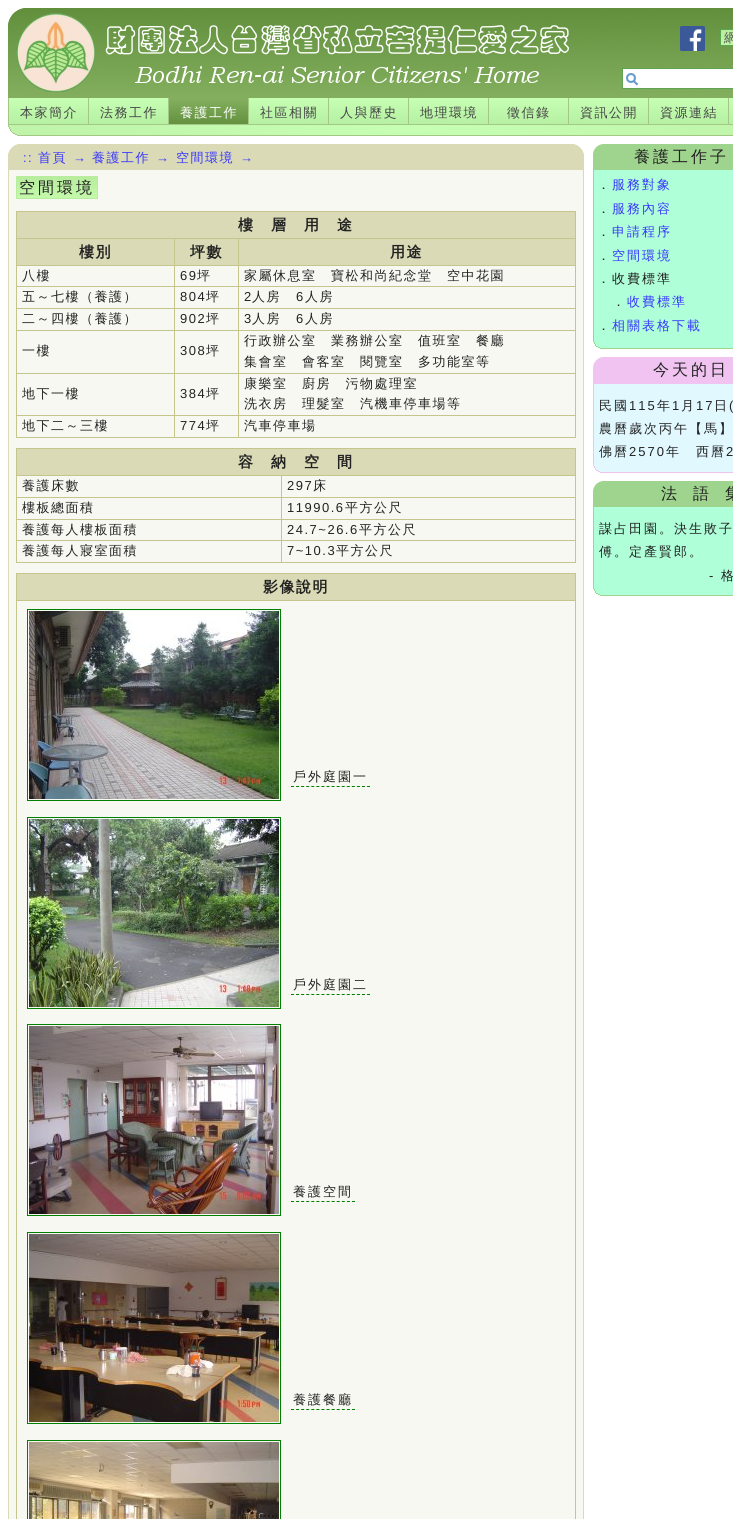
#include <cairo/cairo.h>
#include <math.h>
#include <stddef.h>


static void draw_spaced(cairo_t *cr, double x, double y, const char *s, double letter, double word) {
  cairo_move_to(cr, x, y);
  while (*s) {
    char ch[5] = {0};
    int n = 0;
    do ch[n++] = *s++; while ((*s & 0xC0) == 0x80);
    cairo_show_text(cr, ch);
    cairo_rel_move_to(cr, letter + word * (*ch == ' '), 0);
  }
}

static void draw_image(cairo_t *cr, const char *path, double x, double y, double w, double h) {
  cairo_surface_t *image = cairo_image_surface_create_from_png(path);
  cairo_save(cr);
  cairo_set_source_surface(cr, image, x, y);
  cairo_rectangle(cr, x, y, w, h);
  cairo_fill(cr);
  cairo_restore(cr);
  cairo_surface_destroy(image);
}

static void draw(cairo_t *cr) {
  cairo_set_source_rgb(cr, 1, 1, 1);
  cairo_paint(cr);
  draw_image(cr, "images/1.png", 8, 8, 725, 90);
  draw_image(cr, "images/2.png", 680, 26, 25, 25);
  draw_image(cr, "images/3.png", 721, 30, 12, 15);
  cairo_rectangle(cr, 720.5, 29.5, 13, 16);
  cairo_set_source_rgb(cr, 93 / 255.0, 165 / 255.0, 83 / 255.0);
  cairo_set_line_width(cr, 1);
  cairo_stroke(cr);
  cairo_set_source_rgb(cr, 1, 1, 1);
  cairo_rectangle(cr, 623, 69, 110, 19);
  cairo_fill(cr);
  draw_image(cr, "images/4.png", 626, 73, 12, 13);
  cairo_rectangle(cr, 622.5, 68.5, 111, 20);
  cairo_set_source_rgb(cr, 93 / 255.0, 165 / 255.0, 83 / 255.0);
  cairo_stroke(cr);
  draw_image(cr, "images/5.png", 9, 98, 79, 26);
  cairo_set_source_rgb(cr, 163 / 255.0, 200 / 255.0, 134 / 255.0);
  cairo_rectangle(cr, 8, 124, 725, 1);
  cairo_fill(cr);
  cairo_rectangle(cr, 8, 98, 1, 27);
  cairo_fill(cr);
  draw_image(cr, "images/5.png", 89, 98, 79, 26);
  cairo_rectangle(cr, 88, 98, 1, 27);
  cairo_fill(cr);
  draw_image(cr, "images/6.png", 169, 98, 79, 26);
  cairo_rectangle(cr, 168, 98, 1, 27);
  cairo_fill(cr);
  draw_image(cr, "images/5.png", 249, 98, 79, 26);
  cairo_rectangle(cr, 248, 98, 1, 27);
  cairo_fill(cr);
  draw_image(cr, "images/5.png", 329, 98, 79, 26);
  cairo_rectangle(cr, 328, 98, 1, 27);
  cairo_fill(cr);
  draw_image(cr, "images/5.png", 409, 98, 79, 26);
  cairo_rectangle(cr, 408, 98, 1, 27);
  cairo_fill(cr);
  draw_image(cr, "images/5.png", 489, 98, 79, 26);
  cairo_rectangle(cr, 488, 98, 1, 27);
  cairo_fill(cr);
  draw_image(cr, "images/5.png", 569, 98, 79, 26);
  cairo_rectangle(cr, 568, 98, 1, 27);
  cairo_fill(cr);
  draw_image(cr, "images/5.png", 649, 98, 79, 26);
  cairo_rectangle(cr, 648, 98, 1, 27);
  cairo_fill(cr);
  draw_image(cr, "images/7.png", 729, 98, 4, 26);
  cairo_rectangle(cr, 728, 98, 1, 27);
  cairo_fill(cr);
  draw_image(cr, "images/8.png", 8, 125, 725, 11);
  draw_image(cr, "images/9.png", 8, 144, 576, 26);
  cairo_set_source_rgb(cr, 248 / 255.0, 248 / 255.0, 242 / 255.0);
  cairo_rectangle(cr, 9, 170, 574, 1349);
  cairo_fill(cr);
  cairo_set_source_rgb(cr, 218 / 255.0, 218 / 255.0, 182 / 255.0);
  cairo_rectangle(cr, 583, 170, 1, 1349);
  cairo_fill(cr);
  cairo_rectangle(cr, 8, 170, 1, 1349);
  cairo_fill(cr);
  draw_image(cr, "images/10.png", 17, 177, 80, 21);
  cairo_rectangle(cr, 16.5, 176.5, 81, 22);
  cairo_set_source_rgb(cr, 184 / 255.0, 237 / 255.0, 158 / 255.0);
  cairo_stroke(cr);
  cairo_set_source_rgb(cr, 197 / 255.0, 198 / 255.0, 142 / 255.0);
  cairo_rectangle(cr, 16, 211, 560, 1);
  cairo_fill(cr);
  cairo_rectangle(cr, 575, 211, 1, 227);
  cairo_fill(cr);
  cairo_rectangle(cr, 16, 437, 560, 1);
  cairo_fill(cr);
  cairo_rectangle(cr, 16, 211, 1, 227);
  cairo_fill(cr);
  cairo_set_source_rgb(cr, 218 / 255.0, 218 / 255.0, 182 / 255.0);
  cairo_rectangle(cr, 17, 212, 558, 26);
  cairo_fill(cr);
  cairo_rectangle(cr, 17, 239, 157, 26);
  cairo_fill(cr);
  cairo_set_source_rgb(cr, 197 / 255.0, 198 / 255.0, 142 / 255.0);
  cairo_rectangle(cr, 238, 238, 338, 1);
  cairo_fill(cr);
  cairo_rectangle(cr, 238, 265, 338, 1);
  cairo_fill(cr);
  cairo_rectangle(cr, 238, 286, 338, 1);
  cairo_fill(cr);
  cairo_rectangle(cr, 238, 308, 338, 1);
  cairo_fill(cr);
  cairo_rectangle(cr, 238, 330, 338, 1);
  cairo_fill(cr);
  cairo_rectangle(cr, 238, 373, 338, 1);
  cairo_fill(cr);
  cairo_rectangle(cr, 238, 415, 338, 1);
  cairo_fill(cr);
  cairo_rectangle(cr, 238, 415, 1, 23);
  cairo_fill(cr);
  cairo_rectangle(cr, 174, 415, 65, 1);
  cairo_fill(cr);
  cairo_rectangle(cr, 238, 373, 1, 43);
  cairo_fill(cr);
  cairo_rectangle(cr, 174, 373, 65, 1);
  cairo_fill(cr);
  cairo_rectangle(cr, 238, 330, 1, 44);
  cairo_fill(cr);
  cairo_rectangle(cr, 174, 330, 65, 1);
  cairo_fill(cr);
  cairo_rectangle(cr, 238, 308, 1, 23);
  cairo_fill(cr);
  cairo_rectangle(cr, 174, 308, 65, 1);
  cairo_fill(cr);
  cairo_rectangle(cr, 238, 286, 1, 23);
  cairo_fill(cr);
  cairo_rectangle(cr, 174, 286, 65, 1);
  cairo_fill(cr);
  cairo_rectangle(cr, 238, 265, 1, 22);
  cairo_fill(cr);
  cairo_rectangle(cr, 174, 265, 65, 1);
  cairo_fill(cr);
  cairo_rectangle(cr, 238, 238, 1, 28);
  cairo_fill(cr);
  cairo_rectangle(cr, 174, 238, 65, 1);
  cairo_fill(cr);
  cairo_rectangle(cr, 174, 415, 1, 23);
  cairo_fill(cr);
  cairo_rectangle(cr, 16, 415, 159, 1);
  cairo_fill(cr);
  cairo_rectangle(cr, 174, 373, 1, 43);
  cairo_fill(cr);
  cairo_rectangle(cr, 16, 373, 159, 1);
  cairo_fill(cr);
  cairo_rectangle(cr, 174, 330, 1, 44);
  cairo_fill(cr);
  cairo_rectangle(cr, 16, 330, 159, 1);
  cairo_fill(cr);
  cairo_rectangle(cr, 174, 308, 1, 23);
  cairo_fill(cr);
  cairo_rectangle(cr, 16, 308, 159, 1);
  cairo_fill(cr);
  cairo_rectangle(cr, 174, 286, 1, 23);
  cairo_fill(cr);
  cairo_rectangle(cr, 16, 286, 159, 1);
  cairo_fill(cr);
  cairo_rectangle(cr, 174, 265, 1, 22);
  cairo_fill(cr);
  cairo_rectangle(cr, 16, 265, 159, 1);
  cairo_fill(cr);
  cairo_rectangle(cr, 174, 238, 1, 28);
  cairo_fill(cr);
  cairo_rectangle(cr, 16, 238, 159, 1);
  cairo_fill(cr);
  cairo_set_source_rgb(cr, 218 / 255.0, 218 / 255.0, 182 / 255.0);
  cairo_rectangle(cr, 175, 239, 63, 26);
  cairo_fill(cr);
  cairo_rectangle(cr, 239, 239, 336, 26);
  cairo_fill(cr);
  cairo_set_source_rgb(cr, 197 / 255.0, 198 / 255.0, 142 / 255.0);
  cairo_rectangle(cr, 16, 448, 560, 1);
  cairo_fill(cr);
  cairo_rectangle(cr, 575, 448, 1, 115);
  cairo_fill(cr);
  cairo_rectangle(cr, 16, 562, 560, 1);
  cairo_fill(cr);
  cairo_rectangle(cr, 16, 448, 1, 115);
  cairo_fill(cr);
  cairo_set_source_rgb(cr, 218 / 255.0, 218 / 255.0, 182 / 255.0);
  cairo_rectangle(cr, 17, 449, 558, 26);
  cairo_fill(cr);
  cairo_set_source_rgb(cr, 197 / 255.0, 198 / 255.0, 142 / 255.0);
  cairo_rectangle(cr, 281, 475, 295, 1);
  cairo_fill(cr);
  cairo_rectangle(cr, 281, 497, 295, 1);
  cairo_fill(cr);
  cairo_rectangle(cr, 281, 519, 295, 1);
  cairo_fill(cr);
  cairo_rectangle(cr, 281, 540, 295, 1);
  cairo_fill(cr);
  cairo_rectangle(cr, 281, 540, 1, 23);
  cairo_fill(cr);
  cairo_rectangle(cr, 16, 540, 266, 1);
  cairo_fill(cr);
  cairo_rectangle(cr, 281, 519, 1, 22);
  cairo_fill(cr);
  cairo_rectangle(cr, 16, 519, 266, 1);
  cairo_fill(cr);
  cairo_rectangle(cr, 281, 497, 1, 23);
  cairo_fill(cr);
  cairo_rectangle(cr, 16, 497, 266, 1);
  cairo_fill(cr);
  cairo_rectangle(cr, 281, 475, 1, 23);
  cairo_fill(cr);
  cairo_rectangle(cr, 16, 475, 266, 1);
  cairo_fill(cr);
  cairo_rectangle(cr, 16, 573, 560, 1);
  cairo_fill(cr);
  cairo_rectangle(cr, 575, 573, 1, 946);
  cairo_fill(cr);
  cairo_rectangle(cr, 16, 573, 1, 946);
  cairo_fill(cr);
  cairo_set_source_rgb(cr, 218 / 255.0, 218 / 255.0, 182 / 255.0);
  cairo_rectangle(cr, 17, 574, 558, 26);
  cairo_fill(cr);
  cairo_set_source_rgb(cr, 197 / 255.0, 198 / 255.0, 142 / 255.0);
  cairo_rectangle(cr, 16, 600, 560, 1);
  cairo_fill(cr);
  cairo_rectangle(cr, 27.5, 609.5, 253, 191);
  cairo_set_source_rgb(cr, 0, 128 / 255.0, 0);
  cairo_stroke(cr);
  draw_image(cr, "images/11.png", 29, 611, 250, 188);
  cairo_new_path(cr);
  cairo_move_to(cr, 291, 786.5);
  cairo_line_to(cr, 370, 786.5);
  cairo_set_dash(cr, (double[]){3, 2.07}, 2, 0);
  cairo_stroke(cr);
  cairo_rectangle(cr, 27.5, 817.5, 253, 191);
  cairo_set_dash(cr, NULL, 0, 0);
  cairo_stroke(cr);
  draw_image(cr, "images/12.png", 29, 819, 250, 188);
  cairo_new_path(cr);
  cairo_move_to(cr, 291, 994.5);
  cairo_line_to(cr, 370, 994.5);
  cairo_set_dash(cr, (double[]){3, 2.07}, 2, 0);
  cairo_stroke(cr);
  cairo_rectangle(cr, 27.5, 1024.5, 253, 191);
  cairo_set_dash(cr, NULL, 0, 0);
  cairo_stroke(cr);
  draw_image(cr, "images/13.png", 29, 1026, 250, 188);
  cairo_new_path(cr);
  cairo_move_to(cr, 291, 1201.5);
  cairo_line_to(cr, 355, 1201.5);
  cairo_set_dash(cr, (double[]){3, 2.08}, 2, 0);
  cairo_stroke(cr);
  cairo_rectangle(cr, 27.5, 1232.5, 253, 191);
  cairo_set_dash(cr, NULL, 0, 0);
  cairo_stroke(cr);
  draw_image(cr, "images/14.png", 29, 1234, 250, 188);
  cairo_new_path(cr);
  cairo_move_to(cr, 291, 1409.5);
  cairo_line_to(cr, 355, 1409.5);
  cairo_set_dash(cr, (double[]){3, 2.08}, 2, 0);
  cairo_stroke(cr);
  cairo_rectangle(cr, 27.5, 1440.5, 253, 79);
  cairo_set_dash(cr, NULL, 0, 0);
  cairo_stroke(cr);
  draw_image(cr, "images/15.png", 29, 1442, 250, 77);
  draw_image(cr, "images/16.png", 593, 144, 140, 26);
  cairo_set_source_rgb(cr, 175 / 255.0, 1, 216 / 255.0);
  cairo_rectangle(cr, 594, 170, 139, 170);
  cairo_fill(cr);
  cairo_set_source_rgb(cr, 158 / 255.0, 212 / 255.0, 141 / 255.0);
  cairo_rectangle(cr, 593, 170, 1, 170);
  cairo_fill(cr);
  draw_image(cr, "images/17.png", 593, 340, 140, 9);
  draw_image(cr, "images/18.png", 593, 357, 140, 27);
  cairo_set_source_rgb(cr, 225 / 255.0, 248 / 255.0, 1);
  cairo_rectangle(cr, 594, 384, 139, 80);
  cairo_fill(cr);
  cairo_set_source_rgb(cr, 240 / 255.0, 195 / 255.0, 240 / 255.0);
  cairo_rectangle(cr, 593, 384, 1, 80);
  cairo_fill(cr);
  draw_image(cr, "images/19.png", 593, 464, 140, 9);
  draw_image(cr, "images/16.png", 593, 481, 140, 26);
  cairo_set_source_rgb(cr, 175 / 255.0, 1, 216 / 255.0);
  cairo_rectangle(cr, 594, 507, 139, 80);
  cairo_fill(cr);
  cairo_set_source_rgb(cr, 158 / 255.0, 212 / 255.0, 141 / 255.0);
  cairo_rectangle(cr, 593, 507, 1, 80);
  cairo_fill(cr);
  draw_image(cr, "images/17.png", 593, 587, 140, 9);
  cairo_select_font_face(cr, "WenQuanYi Zen Hei Medium", CAIRO_FONT_SLANT_NORMAL, CAIRO_FONT_WEIGHT_NORMAL);
  cairo_set_font_size(cr, 13);
  cairo_set_source_rgb(cr, 85 / 255.0, 85 / 255.0, 85 / 255.0);
  draw_spaced(cr, 724, 42, "網", 2, 0);
  cairo_set_source_rgb(cr, 68 / 255.0, 68 / 255.0, 68 / 255.0);
  draw_spaced(cr, 20, 117, "本家簡介", 1.5, 0);
  draw_spaced(cr, 100, 117, "法務工作", 1.5, 0);
  cairo_set_source_rgb(cr, 1, 1, 1);
  draw_spaced(cr, 180, 117, "養護工作", 1.5, 0);
  cairo_set_source_rgb(cr, 68 / 255.0, 68 / 255.0, 68 / 255.0);
  draw_spaced(cr, 260, 117, "社區相關", 1.5, 0);
  draw_spaced(cr, 340, 117, "人與歷史", 1.5, 0);
  draw_spaced(cr, 420, 117, "地理環境", 1.5, 0);
  draw_spaced(cr, 507, 117, "徵信錄", 1.5, 0);
  draw_spaced(cr, 580, 117, "資訊公開", 1.5, 0);
  draw_spaced(cr, 660, 117, "資源連結", 1.5, 0);
  cairo_select_font_face(cr, "Liberation Sans", CAIRO_FONT_SLANT_NORMAL, CAIRO_FONT_WEIGHT_NORMAL);
  cairo_set_source_rgb(cr, 57 / 255.0, 55 / 255.0, 1);
  draw_spaced(cr, 23, 162, "::", 1.5, 0);
  cairo_select_font_face(cr, "WenQuanYi Zen Hei Medium", CAIRO_FONT_SLANT_NORMAL, CAIRO_FONT_WEIGHT_NORMAL);
  draw_spaced(cr, 38, 162, "首頁", 1.5, 0);
  cairo_select_font_face(cr, "Liberation Sans", CAIRO_FONT_SLANT_NORMAL, CAIRO_FONT_WEIGHT_NORMAL);
  draw_spaced(cr, 73, 162, "→", 1.5, 0);
  cairo_select_font_face(cr, "WenQuanYi Zen Hei Medium", CAIRO_FONT_SLANT_NORMAL, CAIRO_FONT_WEIGHT_NORMAL);
  draw_spaced(cr, 92, 162, "養護工作", 1.5, 0);
  cairo_select_font_face(cr, "Liberation Sans", CAIRO_FONT_SLANT_NORMAL, CAIRO_FONT_WEIGHT_NORMAL);
  draw_spaced(cr, 156, 162, "→", 1.5, 0);
  cairo_select_font_face(cr, "WenQuanYi Zen Hei Medium", CAIRO_FONT_SLANT_NORMAL, CAIRO_FONT_WEIGHT_NORMAL);
  draw_spaced(cr, 176, 162, "空間環境", 1.5, 0);
  cairo_select_font_face(cr, "Liberation Sans", CAIRO_FONT_SLANT_NORMAL, CAIRO_FONT_WEIGHT_NORMAL);
  draw_spaced(cr, 240, 162, "→", 1.5, 0);
  cairo_select_font_face(cr, "WenQuanYi Zen Hei Medium", CAIRO_FONT_SLANT_NORMAL, CAIRO_FONT_WEIGHT_NORMAL);
  cairo_set_font_size(cr, 16);
  cairo_set_source_rgb(cr, 34 / 255.0, 34 / 255.0, 34 / 255.0);
  draw_spaced(cr, 19, 193, "空間環境", 3, 0);
  cairo_select_font_face(cr, "WenQuanYi Zen Hei", CAIRO_FONT_SLANT_NORMAL, CAIRO_FONT_WEIGHT_BOLD);
  cairo_set_font_size(cr, 15);
  draw_spaced(cr, 238, 230, "樓　層　用　途", 1.5, 0);
  draw_spaced(cr, 79, 257, "樓別", 1.5, 0);
  draw_spaced(cr, 190, 257, "坪數", 1.5, 0);
  draw_spaced(cr, 390, 257, "用途", 1.5, 0);
  cairo_select_font_face(cr, "WenQuanYi Zen Hei Medium", CAIRO_FONT_SLANT_NORMAL, CAIRO_FONT_WEIGHT_NORMAL);
  cairo_set_font_size(cr, 13);
  draw_spaced(cr, 22, 280, "八樓", 1.5, 0);
  cairo_select_font_face(cr, "Liberation Sans", CAIRO_FONT_SLANT_NORMAL, CAIRO_FONT_WEIGHT_NORMAL);
  draw_spaced(cr, 180, 280, "69", 1.5, 0);
  cairo_select_font_face(cr, "WenQuanYi Zen Hei Medium", CAIRO_FONT_SLANT_NORMAL, CAIRO_FONT_WEIGHT_NORMAL);
  draw_spaced(cr, 197, 280, "坪", 1.5, 0);
  draw_spaced(cr, 244, 280, "家屬休息室　寶松和尚紀念堂　空中花園", 1.5, 0);
  draw_spaced(cr, 22, 301, "五～七樓（養護）", 1.5, 0);
  cairo_select_font_face(cr, "Liberation Sans", CAIRO_FONT_SLANT_NORMAL, CAIRO_FONT_WEIGHT_NORMAL);
  draw_spaced(cr, 180, 301, "804", 1.5, 0);
  cairo_select_font_face(cr, "WenQuanYi Zen Hei Medium", CAIRO_FONT_SLANT_NORMAL, CAIRO_FONT_WEIGHT_NORMAL);
  draw_spaced(cr, 206, 301, "坪", 1.5, 0);
  cairo_select_font_face(cr, "Liberation Sans", CAIRO_FONT_SLANT_NORMAL, CAIRO_FONT_WEIGHT_NORMAL);
  draw_spaced(cr, 244, 301, "2", 1.5, 0);
  cairo_select_font_face(cr, "WenQuanYi Zen Hei Medium", CAIRO_FONT_SLANT_NORMAL, CAIRO_FONT_WEIGHT_NORMAL);
  draw_spaced(cr, 252, 301, "人房", 1.5, 0);
  cairo_select_font_face(cr, "Liberation Sans", CAIRO_FONT_SLANT_NORMAL, CAIRO_FONT_WEIGHT_NORMAL);
  draw_spaced(cr, 296, 301, "6", 1.5, 0);
  cairo_select_font_face(cr, "WenQuanYi Zen Hei Medium", CAIRO_FONT_SLANT_NORMAL, CAIRO_FONT_WEIGHT_NORMAL);
  draw_spaced(cr, 305, 301, "人房", 1.5, 0);
  draw_spaced(cr, 22, 323, "二～四樓（養護）", 1.5, 0);
  cairo_select_font_face(cr, "Liberation Sans", CAIRO_FONT_SLANT_NORMAL, CAIRO_FONT_WEIGHT_NORMAL);
  draw_spaced(cr, 180, 323, "902", 1.5, 0);
  cairo_select_font_face(cr, "WenQuanYi Zen Hei Medium", CAIRO_FONT_SLANT_NORMAL, CAIRO_FONT_WEIGHT_NORMAL);
  draw_spaced(cr, 206, 323, "坪", 1.5, 0);
  cairo_select_font_face(cr, "Liberation Sans", CAIRO_FONT_SLANT_NORMAL, CAIRO_FONT_WEIGHT_NORMAL);
  draw_spaced(cr, 244, 323, "3", 1.5, 0);
  cairo_select_font_face(cr, "WenQuanYi Zen Hei Medium", CAIRO_FONT_SLANT_NORMAL, CAIRO_FONT_WEIGHT_NORMAL);
  draw_spaced(cr, 252, 323, "人房", 1.5, 0);
  cairo_select_font_face(cr, "Liberation Sans", CAIRO_FONT_SLANT_NORMAL, CAIRO_FONT_WEIGHT_NORMAL);
  draw_spaced(cr, 296, 323, "6", 1.5, 0);
  cairo_select_font_face(cr, "WenQuanYi Zen Hei Medium", CAIRO_FONT_SLANT_NORMAL, CAIRO_FONT_WEIGHT_NORMAL);
  draw_spaced(cr, 305, 323, "人房", 1.5, 0);
  draw_spaced(cr, 22, 355, "一樓", 1.5, 0);
  cairo_select_font_face(cr, "Liberation Sans", CAIRO_FONT_SLANT_NORMAL, CAIRO_FONT_WEIGHT_NORMAL);
  draw_spaced(cr, 180, 355, "308", 1.5, 0);
  cairo_select_font_face(cr, "WenQuanYi Zen Hei Medium", CAIRO_FONT_SLANT_NORMAL, CAIRO_FONT_WEIGHT_NORMAL);
  draw_spaced(cr, 206, 355, "坪", 1.5, 0);
  draw_spaced(cr, 244, 345, "行政辦公室　業務辦公室　值班室　餐廳", 1.5, 0);
  draw_spaced(cr, 244, 366, "集會室　會客室　閱覽室　多功能室等", 1.5, 0);
  draw_spaced(cr, 22, 398, "地下一樓", 1.5, 0);
  cairo_select_font_face(cr, "Liberation Sans", CAIRO_FONT_SLANT_NORMAL, CAIRO_FONT_WEIGHT_NORMAL);
  draw_spaced(cr, 180, 398, "384", 1.5, 0);
  cairo_select_font_face(cr, "WenQuanYi Zen Hei Medium", CAIRO_FONT_SLANT_NORMAL, CAIRO_FONT_WEIGHT_NORMAL);
  draw_spaced(cr, 206, 398, "坪", 1.5, 0);
  draw_spaced(cr, 244, 388, "康樂室　廚房　污物處理室", 1.5, 0);
  draw_spaced(cr, 244, 408, "洗衣房　理髮室　汽機車停車場等", 1.5, 0);
  draw_spaced(cr, 22, 430, "地下二～三樓", 1.5, 0);
  cairo_select_font_face(cr, "Liberation Sans", CAIRO_FONT_SLANT_NORMAL, CAIRO_FONT_WEIGHT_NORMAL);
  draw_spaced(cr, 180, 430, "774", 1.5, 0);
  cairo_select_font_face(cr, "WenQuanYi Zen Hei Medium", CAIRO_FONT_SLANT_NORMAL, CAIRO_FONT_WEIGHT_NORMAL);
  draw_spaced(cr, 206, 430, "坪", 1.5, 0);
  draw_spaced(cr, 244, 430, "汽車停車場", 1.5, 0);
  cairo_select_font_face(cr, "WenQuanYi Zen Hei", CAIRO_FONT_SLANT_NORMAL, CAIRO_FONT_WEIGHT_BOLD);
  cairo_set_font_size(cr, 15);
  draw_spaced(cr, 238, 467, "容　納　空　間", 1.5, 0);
  cairo_select_font_face(cr, "WenQuanYi Zen Hei Medium", CAIRO_FONT_SLANT_NORMAL, CAIRO_FONT_WEIGHT_NORMAL);
  cairo_set_font_size(cr, 13);
  draw_spaced(cr, 22, 490, "養護床數", 1.5, 0);
  cairo_select_font_face(cr, "Liberation Sans", CAIRO_FONT_SLANT_NORMAL, CAIRO_FONT_WEIGHT_NORMAL);
  draw_spaced(cr, 287, 490, "297", 1.5, 0);
  cairo_select_font_face(cr, "WenQuanYi Zen Hei Medium", CAIRO_FONT_SLANT_NORMAL, CAIRO_FONT_WEIGHT_NORMAL);
  draw_spaced(cr, 313, 490, "床", 1.5, 0);
  draw_spaced(cr, 22, 512, "樓板總面積", 1.5, 0);
  cairo_select_font_face(cr, "Liberation Sans", CAIRO_FONT_SLANT_NORMAL, CAIRO_FONT_WEIGHT_NORMAL);
  draw_spaced(cr, 287, 512, "11990.6", 1.5, 0);
  cairo_select_font_face(cr, "WenQuanYi Zen Hei Medium", CAIRO_FONT_SLANT_NORMAL, CAIRO_FONT_WEIGHT_NORMAL);
  draw_spaced(cr, 345, 512, "平方公尺", 1.5, 0);
  draw_spaced(cr, 22, 534, "養護每人樓板面積", 1.5, 0);
  cairo_select_font_face(cr, "Liberation Sans", CAIRO_FONT_SLANT_NORMAL, CAIRO_FONT_WEIGHT_NORMAL);
  draw_spaced(cr, 287, 534, "24.7~26.6", 1.5, 0);
  cairo_select_font_face(cr, "WenQuanYi Zen Hei Medium", CAIRO_FONT_SLANT_NORMAL, CAIRO_FONT_WEIGHT_NORMAL);
  draw_spaced(cr, 359, 534, "平方公尺", 1.5, 0);
  draw_spaced(cr, 22, 555, "養護每人寢室面積", 1.5, 0);
  cairo_select_font_face(cr, "Liberation Sans", CAIRO_FONT_SLANT_NORMAL, CAIRO_FONT_WEIGHT_NORMAL);
  draw_spaced(cr, 287, 555, "7~10.3", 1.5, 0);
  cairo_select_font_face(cr, "WenQuanYi Zen Hei Medium", CAIRO_FONT_SLANT_NORMAL, CAIRO_FONT_WEIGHT_NORMAL);
  draw_spaced(cr, 336, 555, "平方公尺", 1.5, 0);
  cairo_select_font_face(cr, "WenQuanYi Zen Hei", CAIRO_FONT_SLANT_NORMAL, CAIRO_FONT_WEIGHT_BOLD);
  cairo_set_font_size(cr, 15);
  draw_spaced(cr, 263, 592, "影像說明", 1.5, 0);
  cairo_select_font_face(cr, "WenQuanYi Zen Hei Medium", CAIRO_FONT_SLANT_NORMAL, CAIRO_FONT_WEIGHT_NORMAL);
  cairo_set_font_size(cr, 13);
  draw_spaced(cr, 293, 781, "戶外庭園一", 2, 0);
  draw_spaced(cr, 293, 989, "戶外庭園二", 2, 0);
  draw_spaced(cr, 293, 1196, "養護空間", 2, 0);
  draw_spaced(cr, 293, 1404, "養護餐廳", 2, 0);
  cairo_set_font_size(cr, 16);
  draw_spaced(cr, 634, 162, "養護工作子", 3, 0);
  cairo_set_font_size(cr, 13);
  draw_spaced(cr, 597, 189, "．", 2, 0);
  cairo_set_source_rgb(cr, 57 / 255.0, 55 / 255.0, 1);
  draw_spaced(cr, 612, 189, "服務對象", 2, 0);
  cairo_set_source_rgb(cr, 34 / 255.0, 34 / 255.0, 34 / 255.0);
  draw_spaced(cr, 597, 213, "．", 2, 0);
  cairo_set_source_rgb(cr, 57 / 255.0, 55 / 255.0, 1);
  draw_spaced(cr, 612, 213, "服務內容", 2, 0);
  cairo_set_source_rgb(cr, 34 / 255.0, 34 / 255.0, 34 / 255.0);
  draw_spaced(cr, 597, 236, "．", 2, 0);
  cairo_set_source_rgb(cr, 57 / 255.0, 55 / 255.0, 1);
  draw_spaced(cr, 612, 236, "申請程序", 2, 0);
  cairo_set_source_rgb(cr, 34 / 255.0, 34 / 255.0, 34 / 255.0);
  draw_spaced(cr, 597, 260, "．", 2, 0);
  cairo_set_source_rgb(cr, 57 / 255.0, 55 / 255.0, 1);
  draw_spaced(cr, 612, 260, "空間環境", 2, 0);
  cairo_set_source_rgb(cr, 34 / 255.0, 34 / 255.0, 34 / 255.0);
  draw_spaced(cr, 597, 283, "．收費標準", 2, 0);
  draw_spaced(cr, 612, 306, "．", 2, 0);
  cairo_set_source_rgb(cr, 57 / 255.0, 55 / 255.0, 1);
  draw_spaced(cr, 627, 306, "收費標準", 2, 0);
  cairo_set_source_rgb(cr, 34 / 255.0, 34 / 255.0, 34 / 255.0);
  draw_spaced(cr, 597, 330, "．", 2, 0);
  cairo_set_source_rgb(cr, 57 / 255.0, 55 / 255.0, 1);
  draw_spaced(cr, 612, 330, "相關表格下載", 2, 0);
  cairo_set_font_size(cr, 16);
  cairo_set_source_rgb(cr, 34 / 255.0, 34 / 255.0, 34 / 255.0);
  draw_spaced(cr, 653, 375, "今天的日", 3, 0);
  cairo_set_font_size(cr, 13);
  draw_spaced(cr, 599, 410, "民國", 2, 0);
  cairo_select_font_face(cr, "Liberation Sans", CAIRO_FONT_SLANT_NORMAL, CAIRO_FONT_WEIGHT_NORMAL);
  draw_spaced(cr, 629, 410, "115", 2, 0);
  cairo_select_font_face(cr, "WenQuanYi Zen Hei Medium", CAIRO_FONT_SLANT_NORMAL, CAIRO_FONT_WEIGHT_NORMAL);
  draw_spaced(cr, 657, 410, "年", 2, 0);
  cairo_select_font_face(cr, "Liberation Sans", CAIRO_FONT_SLANT_NORMAL, CAIRO_FONT_WEIGHT_NORMAL);
  draw_spaced(cr, 672, 410, "1", 2, 0);
  cairo_select_font_face(cr, "WenQuanYi Zen Hei Medium", CAIRO_FONT_SLANT_NORMAL, CAIRO_FONT_WEIGHT_NORMAL);
  draw_spaced(cr, 681, 410, "月", 2, 0);
  cairo_select_font_face(cr, "Liberation Sans", CAIRO_FONT_SLANT_NORMAL, CAIRO_FONT_WEIGHT_NORMAL);
  draw_spaced(cr, 696, 410, "17", 2, 0);
  cairo_select_font_face(cr, "WenQuanYi Zen Hei Medium", CAIRO_FONT_SLANT_NORMAL, CAIRO_FONT_WEIGHT_NORMAL);
  draw_spaced(cr, 714, 410, "日", 2, 0);
  cairo_select_font_face(cr, "Liberation Sans", CAIRO_FONT_SLANT_NORMAL, CAIRO_FONT_WEIGHT_NORMAL);
  draw_spaced(cr, 729, 410, "(", 2, 0);
  cairo_select_font_face(cr, "WenQuanYi Zen Hei Medium", CAIRO_FONT_SLANT_NORMAL, CAIRO_FONT_WEIGHT_NORMAL);
  draw_spaced(cr, 599, 433, "農曆歲次丙午【馬】", 2, 0);
  draw_spaced(cr, 599, 456, "佛曆", 2, 0);
  cairo_select_font_face(cr, "Liberation Sans", CAIRO_FONT_SLANT_NORMAL, CAIRO_FONT_WEIGHT_NORMAL);
  draw_spaced(cr, 629, 456, "2570", 2, 0);
  cairo_select_font_face(cr, "WenQuanYi Zen Hei Medium", CAIRO_FONT_SLANT_NORMAL, CAIRO_FONT_WEIGHT_NORMAL);
  draw_spaced(cr, 666, 456, "年　西曆", 2, 0);
  cairo_select_font_face(cr, "Liberation Sans", CAIRO_FONT_SLANT_NORMAL, CAIRO_FONT_WEIGHT_NORMAL);
  draw_spaced(cr, 726, 456, "2", 2, 0);
  cairo_select_font_face(cr, "WenQuanYi Zen Hei Medium", CAIRO_FONT_SLANT_NORMAL, CAIRO_FONT_WEIGHT_NORMAL);
  cairo_set_font_size(cr, 16);
  cairo_move_to(cr, 661, 499);
  cairo_show_text(cr, "法　語　集");
  cairo_set_font_size(cr, 13);
  draw_spaced(cr, 599, 533, "謀占田園。決生敗子", 2, 0);
  draw_spaced(cr, 599, 556, "傅。定產賢郎。", 2, 0);
  cairo_select_font_face(cr, "Liberation Sans", CAIRO_FONT_SLANT_NORMAL, CAIRO_FONT_WEIGHT_NORMAL);
  draw_spaced(cr, 709, 580, "-", 2, 0);
  cairo_select_font_face(cr, "WenQuanYi Zen Hei Medium", CAIRO_FONT_SLANT_NORMAL, CAIRO_FONT_WEIGHT_NORMAL);
  draw_spaced(cr, 721, 580, "格", 2, 0);
}

int main(void) {
  cairo_surface_t *surface = cairo_image_surface_create(CAIRO_FORMAT_RGB24, 733, 1519);
  cairo_t *cr = cairo_create(surface);
  cairo_font_options_t *options = cairo_font_options_create();
  cairo_font_options_set_hint_metrics(options, CAIRO_HINT_METRICS_OFF);
  cairo_font_options_set_hint_style(options, CAIRO_HINT_STYLE_NONE);
  cairo_set_font_options(cr, options);
  cairo_set_miter_limit(cr, 4);
  draw(cr);
  cairo_surface_write_to_png(surface, "out.png");
  cairo_font_options_destroy(options);
  cairo_destroy(cr);
  cairo_surface_destroy(surface);
  return 0;
}
